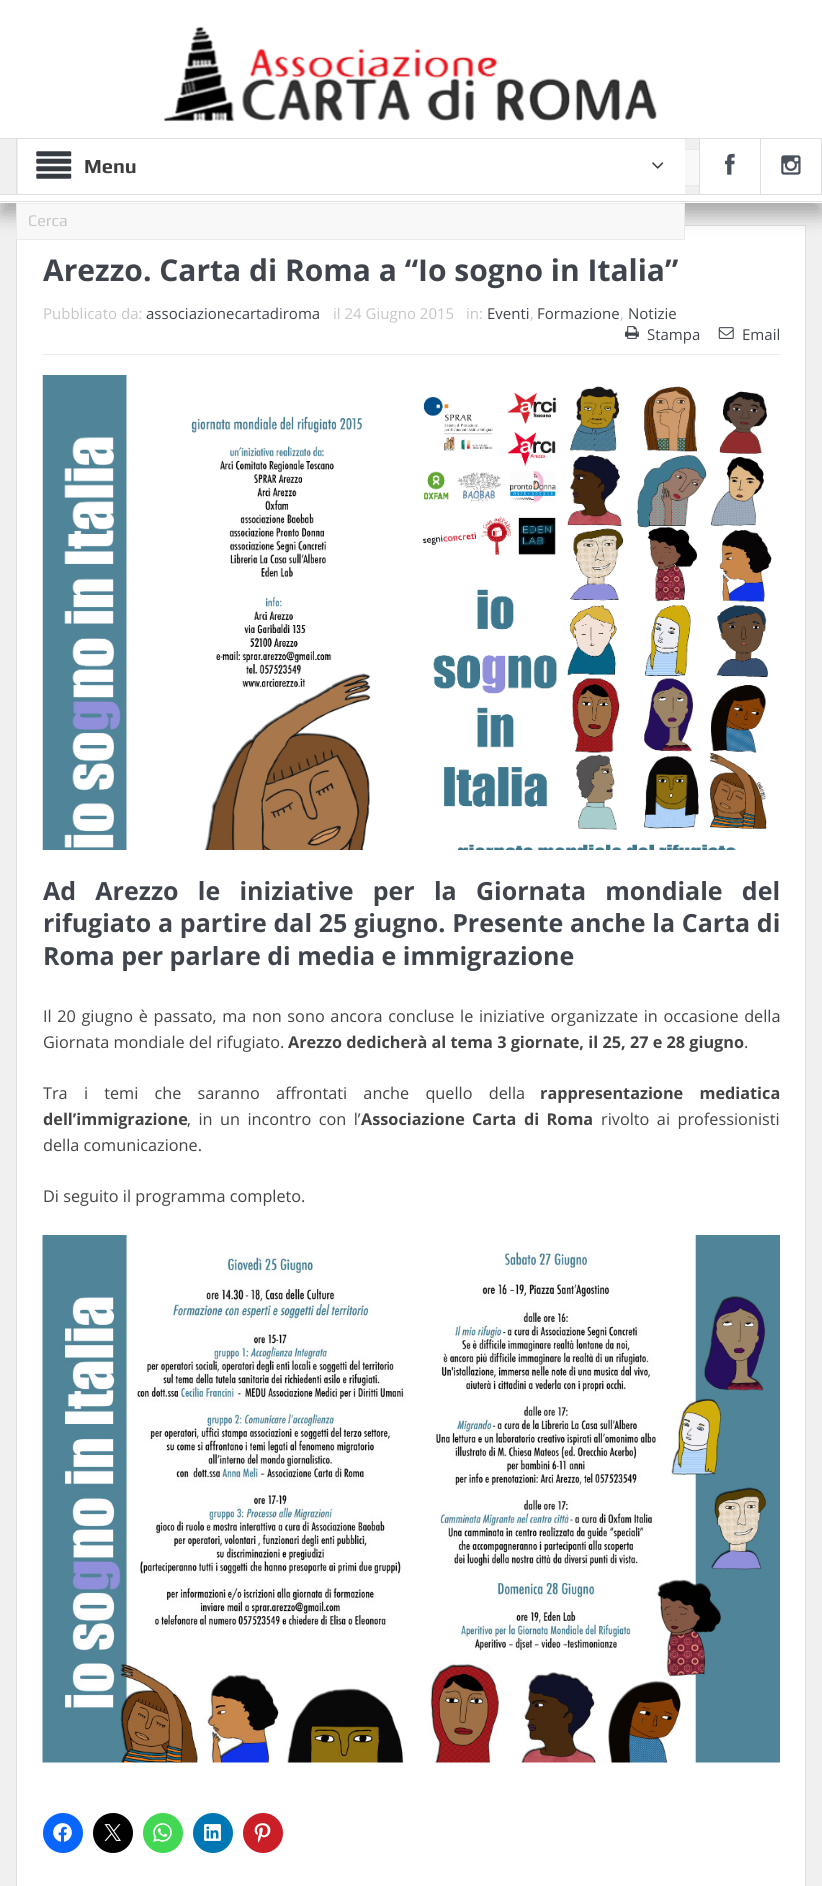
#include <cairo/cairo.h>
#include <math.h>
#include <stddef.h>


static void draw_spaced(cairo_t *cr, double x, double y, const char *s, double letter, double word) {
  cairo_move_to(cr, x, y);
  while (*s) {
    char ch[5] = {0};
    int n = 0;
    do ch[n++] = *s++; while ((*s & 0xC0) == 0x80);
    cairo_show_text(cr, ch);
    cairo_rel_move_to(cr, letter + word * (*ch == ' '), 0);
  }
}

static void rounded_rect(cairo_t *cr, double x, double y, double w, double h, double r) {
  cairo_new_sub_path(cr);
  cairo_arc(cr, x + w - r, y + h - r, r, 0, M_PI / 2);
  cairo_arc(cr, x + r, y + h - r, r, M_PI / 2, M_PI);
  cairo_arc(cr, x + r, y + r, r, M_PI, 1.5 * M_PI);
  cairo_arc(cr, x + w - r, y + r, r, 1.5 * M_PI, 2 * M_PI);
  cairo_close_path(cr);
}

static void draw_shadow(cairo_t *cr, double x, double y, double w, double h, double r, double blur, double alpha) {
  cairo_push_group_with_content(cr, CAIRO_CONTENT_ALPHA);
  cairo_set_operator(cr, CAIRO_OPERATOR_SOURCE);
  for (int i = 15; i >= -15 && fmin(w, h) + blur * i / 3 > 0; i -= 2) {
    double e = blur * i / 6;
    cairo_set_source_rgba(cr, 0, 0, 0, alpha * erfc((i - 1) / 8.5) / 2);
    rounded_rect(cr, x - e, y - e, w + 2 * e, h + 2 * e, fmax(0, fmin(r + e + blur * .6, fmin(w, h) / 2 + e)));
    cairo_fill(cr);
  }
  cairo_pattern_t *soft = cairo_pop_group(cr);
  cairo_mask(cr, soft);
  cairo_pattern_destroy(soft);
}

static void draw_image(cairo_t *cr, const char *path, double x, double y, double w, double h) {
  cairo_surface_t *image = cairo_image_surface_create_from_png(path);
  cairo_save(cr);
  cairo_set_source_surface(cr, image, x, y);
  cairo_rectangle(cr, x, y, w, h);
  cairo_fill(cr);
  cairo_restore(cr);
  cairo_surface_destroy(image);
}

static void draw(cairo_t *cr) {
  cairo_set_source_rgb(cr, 240 / 255.0, 240 / 255.0, 240 / 255.0);
  cairo_paint(cr);
  cairo_set_source_rgb(cr, 1, 1, 1);
  cairo_rectangle(cr, 16.5, 225.5, 789, 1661);
  cairo_fill_preserve(cr);
  cairo_set_source_rgb(cr, 224 / 255.0, 224 / 255.0, 224 / 255.0);
  cairo_set_line_width(cr, 1);
  cairo_stroke(cr);
  cairo_set_source_rgb(cr, 0, 0, 0);
  draw_shadow(cr, 0, 150, 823, 65, 0, 9.5, 0.3);
  cairo_set_source_rgb(cr, 1, 1, 1);
  cairo_rectangle(cr, 0, 0, 822, 138);
  cairo_fill(cr);
  draw_image(cr, "images/1.png", 164, 26, 493, 96);
  cairo_rectangle(cr, 0, 195, 822, 8);
  cairo_fill(cr);
  cairo_set_source_rgb(cr, 223 / 255.0, 223 / 255.0, 223 / 255.0);
  cairo_rectangle(cr, 0, 138, 822, 1);
  cairo_fill(cr);
  cairo_rectangle(cr, 0, 201, 822, 1);
  cairo_fill(cr);
  cairo_set_source_rgb(cr, 240 / 255.0, 240 / 255.0, 240 / 255.0);
  cairo_rectangle(cr, 0, 139, 699, 55);
  cairo_fill(cr);
  cairo_set_source_rgb(cr, 223 / 255.0, 223 / 255.0, 223 / 255.0);
  cairo_rectangle(cr, 0, 194, 822, 1);
  cairo_fill(cr);
  cairo_set_source_rgb(cr, 248 / 255.0, 248 / 255.0, 248 / 255.0);
  cairo_rectangle(cr, 685, 150, 14, 35);
  cairo_fill(cr);
  cairo_rectangle(cr, 625.5, 149.5, 180, 36);
  cairo_set_source_rgb(cr, 234 / 255.0, 234 / 255.0, 234 / 255.0);
  cairo_stroke(cr);
  cairo_set_source_rgb(cr, 1, 1, 1);
  cairo_rectangle(cr, 18, 139, 667, 55);
  cairo_fill(cr);
  cairo_set_source_rgb(cr, 223 / 255.0, 223 / 255.0, 223 / 255.0);
  cairo_rectangle(cr, 16, 139, 1, 55);
  cairo_fill(cr);
  draw_image(cr, "images/2.png", 36, 151, 36, 28);
  draw_image(cr, "images/3.png", 652, 162, 12, 7);
  cairo_set_source_rgb(cr, 248 / 255.0, 248 / 255.0, 248 / 255.0);
  cairo_rectangle(cr, 16.5, 203.5, 668, 36);
  cairo_fill_preserve(cr);
  cairo_set_source_rgb(cr, 234 / 255.0, 234 / 255.0, 234 / 255.0);
  cairo_stroke(cr);
  cairo_set_source_rgb(cr, 1, 1, 1);
  cairo_rectangle(cr, 700, 139, 60, 55);
  cairo_fill(cr);
  cairo_set_source_rgb(cr, 223 / 255.0, 223 / 255.0, 223 / 255.0);
  cairo_rectangle(cr, 760, 139, 1, 55);
  cairo_fill(cr);
  cairo_rectangle(cr, 699, 139, 1, 55);
  cairo_fill(cr);
  draw_image(cr, "images/4.png", 725, 153, 10, 22);
  cairo_set_source_rgb(cr, 1, 1, 1);
  cairo_rectangle(cr, 761, 139, 60, 55);
  cairo_fill(cr);
  cairo_set_source_rgb(cr, 223 / 255.0, 223 / 255.0, 223 / 255.0);
  cairo_rectangle(cr, 821, 139, 1, 55);
  cairo_fill(cr);
  draw_image(cr, "images/5.png", 781, 155, 20, 20);
  cairo_set_source_rgb(cr, 234 / 255.0, 234 / 255.0, 234 / 255.0);
  cairo_rectangle(cr, 43, 354, 737, 1);
  cairo_fill(cr);
  draw_image(cr, "images/6.png", 625, 326, 14, 13);
  draw_image(cr, "images/7.png", 718, 327, 16, 12);
  draw_image(cr, "images/8.png", 42, 375, 730, 475);
  draw_image(cr, "images/9.png", 42, 1235, 738, 528);
  cairo_set_source_rgb(cr, 8 / 255.0, 102 / 255.0, 1);
  cairo_arc(cr, 63, 1833, 20, 0, 2 * M_PI);
  cairo_fill(cr);
  draw_image(cr, "images/10.png", 53, 1823, 19, 19);
  cairo_set_source_rgb(cr, 0, 0, 0);
  cairo_arc(cr, 113, 1833, 20, 0, 2 * M_PI);
  cairo_fill(cr);
  draw_image(cr, "images/11.png", 104, 1824, 17, 17);
  cairo_set_source_rgb(cr, 67 / 255.0, 216 / 255.0, 84 / 255.0);
  cairo_arc(cr, 163, 1833, 20, 0, 2 * M_PI);
  cairo_fill(cr);
  draw_image(cr, "images/12.png", 153, 1823, 19, 19);
  cairo_set_source_rgb(cr, 0, 119 / 255.0, 181 / 255.0);
  cairo_arc(cr, 213, 1833, 20, 0, 2 * M_PI);
  cairo_fill(cr);
  draw_image(cr, "images/13.png", 204, 1824, 17, 17);
  cairo_set_source_rgb(cr, 202 / 255.0, 31 / 255.0, 39 / 255.0);
  cairo_arc(cr, 263, 1833, 20, 0, 2 * M_PI);
  cairo_fill(cr);
  draw_image(cr, "images/14.png", 254, 1823, 17, 20);
  cairo_select_font_face(cr, "Play", CAIRO_FONT_SLANT_NORMAL, CAIRO_FONT_WEIGHT_BOLD);
  cairo_set_font_size(cr, 20);
  cairo_set_source_rgb(cr, 60 / 255.0, 60 / 255.0, 60 / 255.0);
  cairo_move_to(cr, 84, 173);
  cairo_show_text(cr, "Menu");
  cairo_select_font_face(cr, "Play", CAIRO_FONT_SLANT_NORMAL, CAIRO_FONT_WEIGHT_NORMAL);
  cairo_set_font_size(cr, 16.25);
  cairo_set_source_rgb(cr, 198 / 255.0, 198 / 255.0, 198 / 255.0);
  cairo_move_to(cr, 28, 226);
  cairo_show_text(cr, "Cerca");
  cairo_select_font_face(cr, "Open Sans", CAIRO_FONT_SLANT_NORMAL, CAIRO_FONT_WEIGHT_BOLD);
  cairo_set_font_size(cr, 30);
  cairo_set_source_rgb(cr, 64 / 255.0, 69 / 255.0, 77 / 255.0);
  cairo_move_to(cr, 43, 281);
  cairo_show_text(cr, "Arezzo. Carta di Roma a “Io sogno in Italia”");
  cairo_select_font_face(cr, "Open Sans", CAIRO_FONT_SLANT_NORMAL, CAIRO_FONT_WEIGHT_NORMAL);
  cairo_set_font_size(cr, 15);
  cairo_set_source_rgb(cr, 198 / 255.0, 198 / 255.0, 198 / 255.0);
  cairo_move_to(cr, 43, 319);
  cairo_show_text(cr, "Pubblicato da:");
  cairo_set_source_rgb(cr, 64 / 255.0, 69 / 255.0, 77 / 255.0);
  cairo_move_to(cr, 146, 319);
  cairo_show_text(cr, "associazionecartadiroma");
  cairo_set_source_rgb(cr, 198 / 255.0, 198 / 255.0, 198 / 255.0);
  cairo_move_to(cr, 333, 319);
  cairo_show_text(cr, "il 24 Giugno 2015");
  cairo_move_to(cr, 466, 319);
  cairo_show_text(cr, "in:");
  cairo_set_source_rgb(cr, 64 / 255.0, 69 / 255.0, 77 / 255.0);
  cairo_move_to(cr, 487, 319);
  cairo_show_text(cr, "Eventi");
  cairo_set_source_rgb(cr, 198 / 255.0, 198 / 255.0, 198 / 255.0);
  cairo_move_to(cr, 530, 319);
  cairo_show_text(cr, ",");
  cairo_set_source_rgb(cr, 64 / 255.0, 69 / 255.0, 77 / 255.0);
  cairo_move_to(cr, 537, 319);
  cairo_show_text(cr, "Formazione");
  cairo_set_source_rgb(cr, 198 / 255.0, 198 / 255.0, 198 / 255.0);
  cairo_move_to(cr, 620, 319);
  cairo_show_text(cr, ",");
  cairo_set_source_rgb(cr, 64 / 255.0, 69 / 255.0, 77 / 255.0);
  cairo_move_to(cr, 628, 319);
  cairo_show_text(cr, "Notizie");
  cairo_move_to(cr, 647, 340);
  cairo_show_text(cr, "Stampa");
  cairo_move_to(cr, 742, 340);
  cairo_show_text(cr, "Email");
  cairo_select_font_face(cr, "Open Sans", CAIRO_FONT_SLANT_NORMAL, CAIRO_FONT_WEIGHT_BOLD);
  cairo_set_font_size(cr, 25);
  draw_spaced(cr, 43, 900, "Ad Arezzo le iniziative per la Giornata mondiale del", 0, 12.75);
  draw_spaced(cr, 43, 932, "rifugiato a partire dal 25 giugno. Presente anche la Carta di", 0, 0.25);
  cairo_move_to(cr, 43, 965);
  cairo_show_text(cr, "Roma per parlare di media e immigrazione");
  cairo_select_font_face(cr, "Open Sans", CAIRO_FONT_SLANT_NORMAL, CAIRO_FONT_WEIGHT_NORMAL);
  cairo_set_font_size(cr, 16.25);
  cairo_set_source_rgb(cr, 68 / 255.0, 68 / 255.0, 68 / 255.0);
  draw_spaced(cr, 43, 1022, "Il 20 giugno è passato, ma non sono ancora concluse le iniziative organizzate in occasione della", 0, 1.4);
  cairo_move_to(cr, 43, 1048);
  cairo_show_text(cr, "Giornata mondiale del rifugiato.");
  cairo_select_font_face(cr, "Open Sans", CAIRO_FONT_SLANT_NORMAL, CAIRO_FONT_WEIGHT_BOLD);
  cairo_move_to(cr, 288, 1048);
  cairo_show_text(cr, "Arezzo dedicherà al tema 3 giornate, il 25, 27 e 28 giugno");
  cairo_select_font_face(cr, "Open Sans", CAIRO_FONT_SLANT_NORMAL, CAIRO_FONT_WEIGHT_NORMAL);
  cairo_move_to(cr, 744, 1048);
  cairo_show_text(cr, ".");
  draw_spaced(cr, 43, 1099, "Tra i temi che saranno affrontati anche quello della", 0, 12);
  cairo_select_font_face(cr, "Open Sans", CAIRO_FONT_SLANT_NORMAL, CAIRO_FONT_WEIGHT_BOLD);
  draw_spaced(cr, 540, 1099, "rappresentazione mediatica", 0, 12);
  cairo_move_to(cr, 43, 1125);
  cairo_show_text(cr, "dell’immigrazione");
  cairo_select_font_face(cr, "Open Sans", CAIRO_FONT_SLANT_NORMAL, CAIRO_FONT_WEIGHT_NORMAL);
  draw_spaced(cr, 187, 1125, ", in un incontro con l’", 0, 3.25);
  cairo_select_font_face(cr, "Open Sans", CAIRO_FONT_SLANT_NORMAL, CAIRO_FONT_WEIGHT_BOLD);
  cairo_move_to(cr, 361, 1125);
  cairo_show_text(cr, "Associazione");
  draw_spaced(cr, 472, 1125, "Carta di Roma", 0, 3.25);
  cairo_select_font_face(cr, "Open Sans", CAIRO_FONT_SLANT_NORMAL, CAIRO_FONT_WEIGHT_NORMAL);
  draw_spaced(cr, 601, 1125, "rivolto ai professionisti", 0, 3.25);
  cairo_move_to(cr, 43, 1151);
  cairo_show_text(cr, "della comunicazione.");
  cairo_move_to(cr, 43, 1202);
  cairo_show_text(cr, "Di seguito il programma completo.");
}

int main(void) {
  cairo_surface_t *surface = cairo_image_surface_create(CAIRO_FORMAT_RGB24, 822, 1886);
  cairo_t *cr = cairo_create(surface);
  cairo_font_options_t *options = cairo_font_options_create();
  cairo_font_options_set_hint_metrics(options, CAIRO_HINT_METRICS_OFF);
  cairo_font_options_set_hint_style(options, CAIRO_HINT_STYLE_NONE);
  cairo_set_font_options(cr, options);
  cairo_set_miter_limit(cr, 4);
  draw(cr);
  cairo_surface_write_to_png(surface, "out.png");
  cairo_font_options_destroy(options);
  cairo_destroy(cr);
  cairo_surface_destroy(surface);
  return 0;
}
